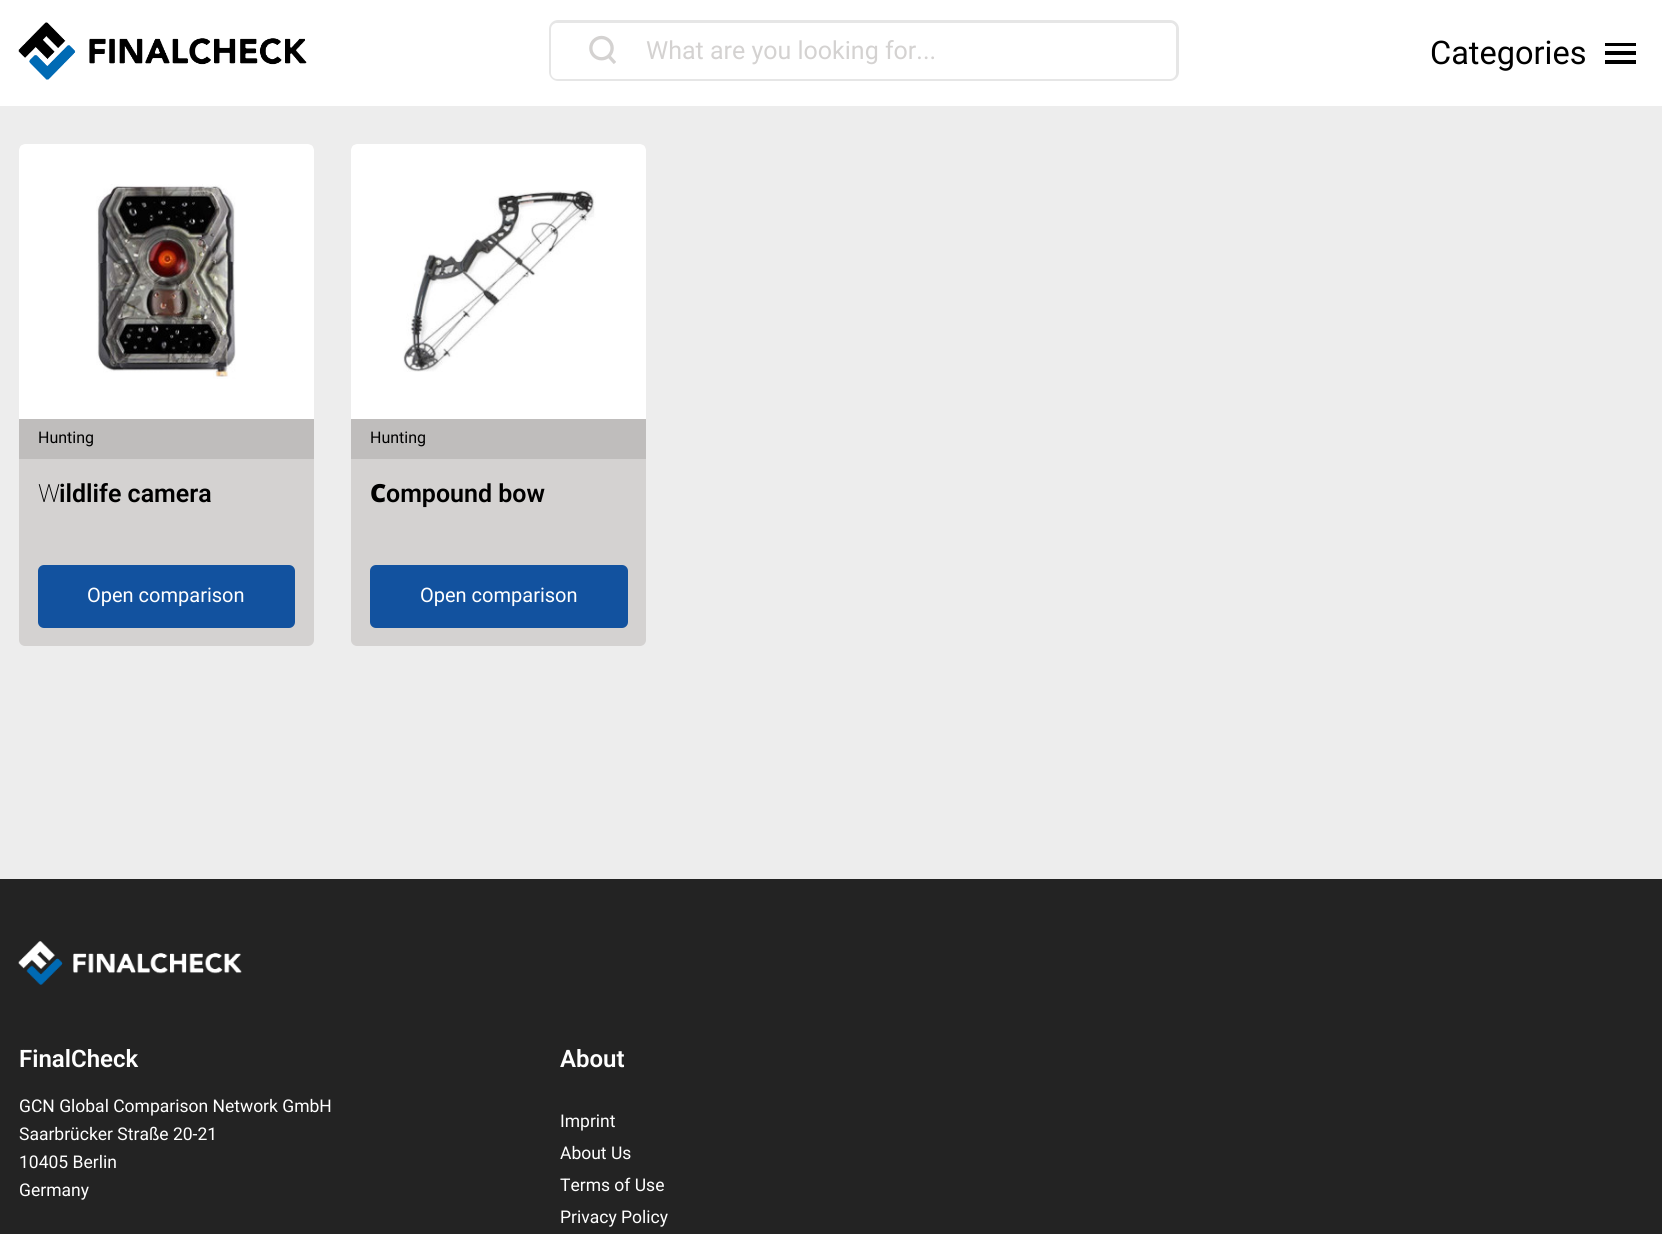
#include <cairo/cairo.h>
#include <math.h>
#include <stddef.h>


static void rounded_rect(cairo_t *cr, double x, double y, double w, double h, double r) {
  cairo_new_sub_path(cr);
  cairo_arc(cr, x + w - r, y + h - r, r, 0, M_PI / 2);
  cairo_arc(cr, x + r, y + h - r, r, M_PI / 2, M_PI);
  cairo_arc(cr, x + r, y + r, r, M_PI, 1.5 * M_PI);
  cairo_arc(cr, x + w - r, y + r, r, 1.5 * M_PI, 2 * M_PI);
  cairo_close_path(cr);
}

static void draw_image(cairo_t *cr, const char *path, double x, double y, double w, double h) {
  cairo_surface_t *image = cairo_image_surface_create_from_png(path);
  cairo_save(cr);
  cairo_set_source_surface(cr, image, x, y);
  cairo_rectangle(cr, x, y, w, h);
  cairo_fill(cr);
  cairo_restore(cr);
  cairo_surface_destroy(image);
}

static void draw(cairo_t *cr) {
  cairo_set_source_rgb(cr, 237 / 255.0, 237 / 255.0, 237 / 255.0);
  cairo_paint(cr);
  cairo_set_source_rgb(cr, 1, 1, 1);
  cairo_rectangle(cr, 0, 0, 1662, 106);
  cairo_fill(cr);
  draw_image(cr, "images/1.png", 18, 22, 289, 58);
  rounded_rect(cr, 550.5, 21.5, 627, 58, 7.5);
  cairo_set_source_rgb(cr, 230 / 255.0, 230 / 255.0, 230 / 255.0);
  cairo_set_line_width(cr, 3);
  cairo_stroke(cr);
  cairo_set_source_rgb(cr, 1, 1, 1);
  rounded_rect(cr, 551, 23, 625, 56, 6);
  cairo_fill(cr);
  draw_image(cr, "images/2.png", 589, 35, 27, 29);
  cairo_set_source_rgb(cr, 0, 0, 0);
  cairo_rectangle(cr, 1605, 43, 31, 3);
  cairo_fill(cr);
  cairo_rectangle(cr, 1605, 51, 31, 4);
  cairo_fill(cr);
  cairo_rectangle(cr, 1605, 60, 31, 4);
  cairo_fill(cr);
  cairo_set_source_rgb(cr, 212 / 255.0, 210 / 255.0, 209 / 255.0);
  rounded_rect(cr, 19, 144, 295, 502, 6);
  cairo_fill(cr);
  cairo_set_source_rgb(cr, 1, 1, 1);
  cairo_new_path(cr);
  cairo_move_to(cr, 25, 144);
  cairo_line_to(cr, 308, 144);
  cairo_curve_to(cr, 311.5, 144, 314, 146.5, 314, 150);
  cairo_line_to(cr, 314, 419);
  cairo_line_to(cr, 19, 419);
  cairo_line_to(cr, 19, 150);
  cairo_curve_to(cr, 19, 146.5, 21.5, 144, 25, 144);
  cairo_close_path(cr);
  cairo_fill(cr);
  draw_image(cr, "images/3.png", 96, 184, 140, 195);
  cairo_set_source_rgb(cr, 191 / 255.0, 189 / 255.0, 188 / 255.0);
  cairo_rectangle(cr, 19, 419, 295, 40);
  cairo_fill(cr);
  cairo_set_source_rgb(cr, 18 / 255.0, 82 / 255.0, 159 / 255.0);
  rounded_rect(cr, 38, 565, 257, 63, 6);
  cairo_fill(cr);
  cairo_set_source_rgb(cr, 212 / 255.0, 210 / 255.0, 209 / 255.0);
  rounded_rect(cr, 351, 144, 295, 502, 6);
  cairo_fill(cr);
  cairo_set_source_rgb(cr, 1, 1, 1);
  cairo_new_path(cr);
  cairo_move_to(cr, 357, 144);
  cairo_line_to(cr, 640, 144);
  cairo_curve_to(cr, 643.5, 144, 646, 146.5, 646, 150);
  cairo_line_to(cr, 646, 419);
  cairo_line_to(cr, 351, 419);
  cairo_line_to(cr, 351, 150);
  cairo_curve_to(cr, 351, 146.5, 353.5, 144, 357, 144);
  cairo_close_path(cr);
  cairo_fill(cr);
  draw_image(cr, "images/4.png", 403, 190, 193, 182);
  cairo_set_source_rgb(cr, 191 / 255.0, 189 / 255.0, 188 / 255.0);
  cairo_rectangle(cr, 351, 419, 295, 40);
  cairo_fill(cr);
  cairo_set_source_rgb(cr, 18 / 255.0, 82 / 255.0, 159 / 255.0);
  rounded_rect(cr, 370, 565, 258, 63, 6);
  cairo_fill(cr);
  cairo_set_source_rgb(cr, 35 / 255.0, 35 / 255.0, 35 / 255.0);
  cairo_rectangle(cr, 0, 879, 1662, 355);
  cairo_fill(cr);
  draw_image(cr, "images/5.png", 18, 941, 224, 44);
  cairo_select_font_face(cr, "Roboto", CAIRO_FONT_SLANT_NORMAL, CAIRO_FONT_WEIGHT_NORMAL);
  cairo_set_font_size(cr, 25);
  cairo_set_source_rgb(cr, 212 / 255.0, 210 / 255.0, 209 / 255.0);
  cairo_move_to(cr, 646, 59);
  cairo_show_text(cr, "What are you looking for...");
  cairo_set_font_size(cr, 32.5);
  cairo_set_source_rgb(cr, 0, 0, 0);
  cairo_move_to(cr, 1430, 64);
  cairo_show_text(cr, "Categories");
  cairo_set_font_size(cr, 16);
  cairo_move_to(cr, 38, 443);
  cairo_show_text(cr, "Hunting");
  cairo_select_font_face(cr, "Noto Sans ExtraLight", CAIRO_FONT_SLANT_NORMAL, CAIRO_FONT_WEIGHT_NORMAL);
  cairo_set_font_size(cr, 25);
  cairo_move_to(cr, 38, 502);
  cairo_show_text(cr, "W");
  cairo_select_font_face(cr, "Roboto SemiBold", CAIRO_FONT_SLANT_NORMAL, CAIRO_FONT_WEIGHT_NORMAL);
  cairo_move_to(cr, 59, 502);
  cairo_show_text(cr, "ildlife camera");
  cairo_select_font_face(cr, "Roboto", CAIRO_FONT_SLANT_NORMAL, CAIRO_FONT_WEIGHT_NORMAL);
  cairo_set_font_size(cr, 20);
  cairo_set_source_rgb(cr, 1, 1, 1);
  cairo_move_to(cr, 87, 602);
  cairo_show_text(cr, "Open comparison");
  cairo_set_font_size(cr, 16);
  cairo_set_source_rgb(cr, 0, 0, 0);
  cairo_move_to(cr, 370, 443);
  cairo_show_text(cr, "Hunting");
  cairo_select_font_face(cr, "Noto Sans Black", CAIRO_FONT_SLANT_NORMAL, CAIRO_FONT_WEIGHT_NORMAL);
  cairo_set_font_size(cr, 25);
  cairo_move_to(cr, 370, 502);
  cairo_show_text(cr, "C");
  cairo_select_font_face(cr, "Roboto SemiBold", CAIRO_FONT_SLANT_NORMAL, CAIRO_FONT_WEIGHT_NORMAL);
  cairo_move_to(cr, 386, 502);
  cairo_show_text(cr, "ompound bow");
  cairo_select_font_face(cr, "Roboto", CAIRO_FONT_SLANT_NORMAL, CAIRO_FONT_WEIGHT_NORMAL);
  cairo_set_font_size(cr, 20);
  cairo_set_source_rgb(cr, 1, 1, 1);
  cairo_move_to(cr, 420, 602);
  cairo_show_text(cr, "Open comparison");
  cairo_select_font_face(cr, "Roboto SemiBold", CAIRO_FONT_SLANT_NORMAL, CAIRO_FONT_WEIGHT_NORMAL);
  cairo_set_font_size(cr, 24);
  cairo_move_to(cr, 19, 1067);
  cairo_show_text(cr, "FinalCheck");
  cairo_select_font_face(cr, "Roboto", CAIRO_FONT_SLANT_NORMAL, CAIRO_FONT_WEIGHT_NORMAL);
  cairo_set_font_size(cr, 17.5);
  cairo_move_to(cr, 19, 1112);
  cairo_show_text(cr, "GCN Global Comparison Network GmbH");
  cairo_move_to(cr, 19, 1140);
  cairo_show_text(cr, "Saarbrücker Straße 20-21");
  cairo_move_to(cr, 19, 1168);
  cairo_show_text(cr, "10405 Berlin");
  cairo_move_to(cr, 19, 1196);
  cairo_show_text(cr, "Germany");
  cairo_select_font_face(cr, "Roboto SemiBold", CAIRO_FONT_SLANT_NORMAL, CAIRO_FONT_WEIGHT_NORMAL);
  cairo_set_font_size(cr, 24);
  cairo_move_to(cr, 560, 1067);
  cairo_show_text(cr, "About");
  cairo_select_font_face(cr, "Roboto", CAIRO_FONT_SLANT_NORMAL, CAIRO_FONT_WEIGHT_NORMAL);
  cairo_set_font_size(cr, 17.5);
  cairo_move_to(cr, 560, 1127);
  cairo_show_text(cr, "Imprint");
  cairo_move_to(cr, 560, 1159);
  cairo_show_text(cr, "About Us");
  cairo_move_to(cr, 560, 1191);
  cairo_show_text(cr, "Terms of Use");
  cairo_move_to(cr, 560, 1223);
  cairo_show_text(cr, "Privacy Policy");
}

int main(void) {
  cairo_surface_t *surface = cairo_image_surface_create(CAIRO_FORMAT_RGB24, 1662, 1234);
  cairo_t *cr = cairo_create(surface);
  cairo_font_options_t *options = cairo_font_options_create();
  cairo_font_options_set_hint_metrics(options, CAIRO_HINT_METRICS_OFF);
  cairo_font_options_set_hint_style(options, CAIRO_HINT_STYLE_NONE);
  cairo_set_font_options(cr, options);
  cairo_set_miter_limit(cr, 4);
  draw(cr);
  cairo_surface_write_to_png(surface, "out.png");
  cairo_font_options_destroy(options);
  cairo_destroy(cr);
  cairo_surface_destroy(surface);
  return 0;
}
